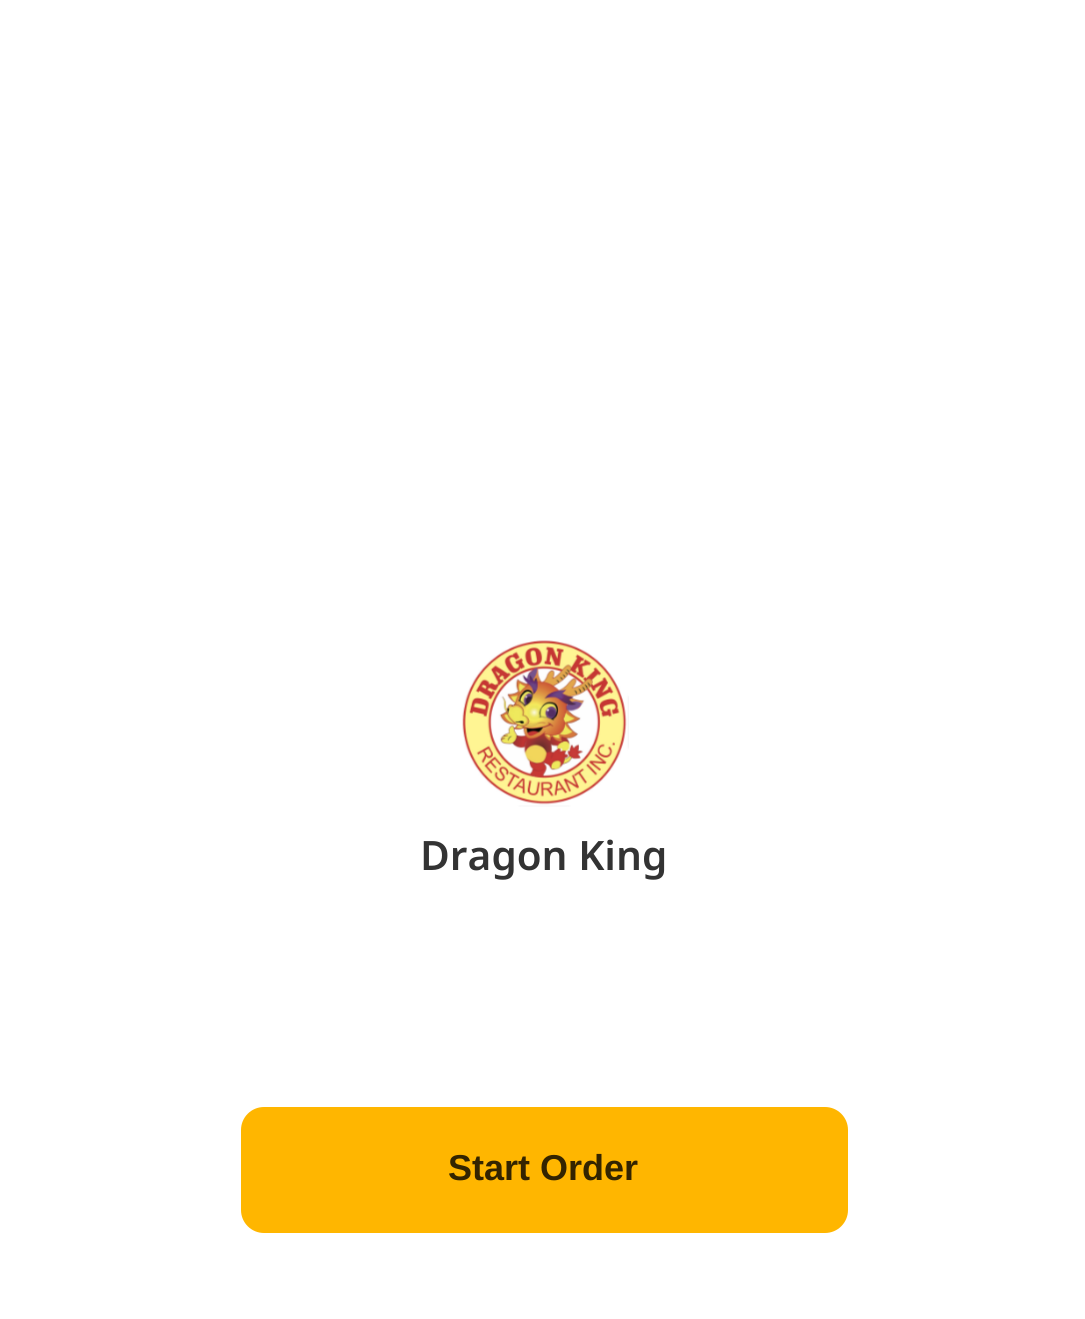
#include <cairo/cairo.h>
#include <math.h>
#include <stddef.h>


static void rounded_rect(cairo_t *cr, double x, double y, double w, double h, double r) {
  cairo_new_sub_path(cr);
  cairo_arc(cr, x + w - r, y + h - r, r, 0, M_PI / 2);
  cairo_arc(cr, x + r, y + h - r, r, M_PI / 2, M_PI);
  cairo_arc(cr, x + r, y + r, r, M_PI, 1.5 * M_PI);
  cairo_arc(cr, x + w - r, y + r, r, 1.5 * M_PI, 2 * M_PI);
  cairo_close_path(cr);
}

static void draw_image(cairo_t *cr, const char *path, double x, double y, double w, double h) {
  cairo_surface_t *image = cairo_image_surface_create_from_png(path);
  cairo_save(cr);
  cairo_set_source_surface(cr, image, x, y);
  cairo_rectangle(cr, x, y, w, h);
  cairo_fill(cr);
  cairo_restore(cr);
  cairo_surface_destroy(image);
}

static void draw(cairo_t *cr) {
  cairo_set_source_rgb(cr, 1, 1, 1);
  cairo_paint(cr);
  draw_image(cr, "images/1.png", 462, 640, 167, 167);
  cairo_set_source_rgb(cr, 1, 182 / 255.0, 0);
  rounded_rect(cr, 241, 1107, 607, 126, 23);
  cairo_fill(cr);
  cairo_select_font_face(cr, "Noto Sans SemiBold", CAIRO_FONT_SLANT_NORMAL, CAIRO_FONT_WEIGHT_NORMAL);
  cairo_set_font_size(cr, 40.5);
  cairo_set_source_rgb(cr, 51 / 255.0, 51 / 255.0, 51 / 255.0);
  cairo_move_to(cr, 420, 870);
  cairo_show_text(cr, "Dragon King");
  cairo_select_font_face(cr, "Liberation Sans", CAIRO_FONT_SLANT_NORMAL, CAIRO_FONT_WEIGHT_BOLD);
  cairo_set_font_size(cr, 36);
  cairo_set_source_rgb(cr, 51 / 255.0, 36 / 255.0, 0);
  cairo_move_to(cr, 448, 1180);
  cairo_show_text(cr, "Start Order");
}

int main(void) {
  cairo_surface_t *surface = cairo_image_surface_create(CAIRO_FORMAT_RGB24, 1085, 1319);
  cairo_t *cr = cairo_create(surface);
  cairo_font_options_t *options = cairo_font_options_create();
  cairo_font_options_set_hint_metrics(options, CAIRO_HINT_METRICS_OFF);
  cairo_font_options_set_hint_style(options, CAIRO_HINT_STYLE_NONE);
  cairo_set_font_options(cr, options);
  cairo_set_miter_limit(cr, 4);
  draw(cr);
  cairo_surface_write_to_png(surface, "out.png");
  cairo_font_options_destroy(options);
  cairo_destroy(cr);
  cairo_surface_destroy(surface);
  return 0;
}
